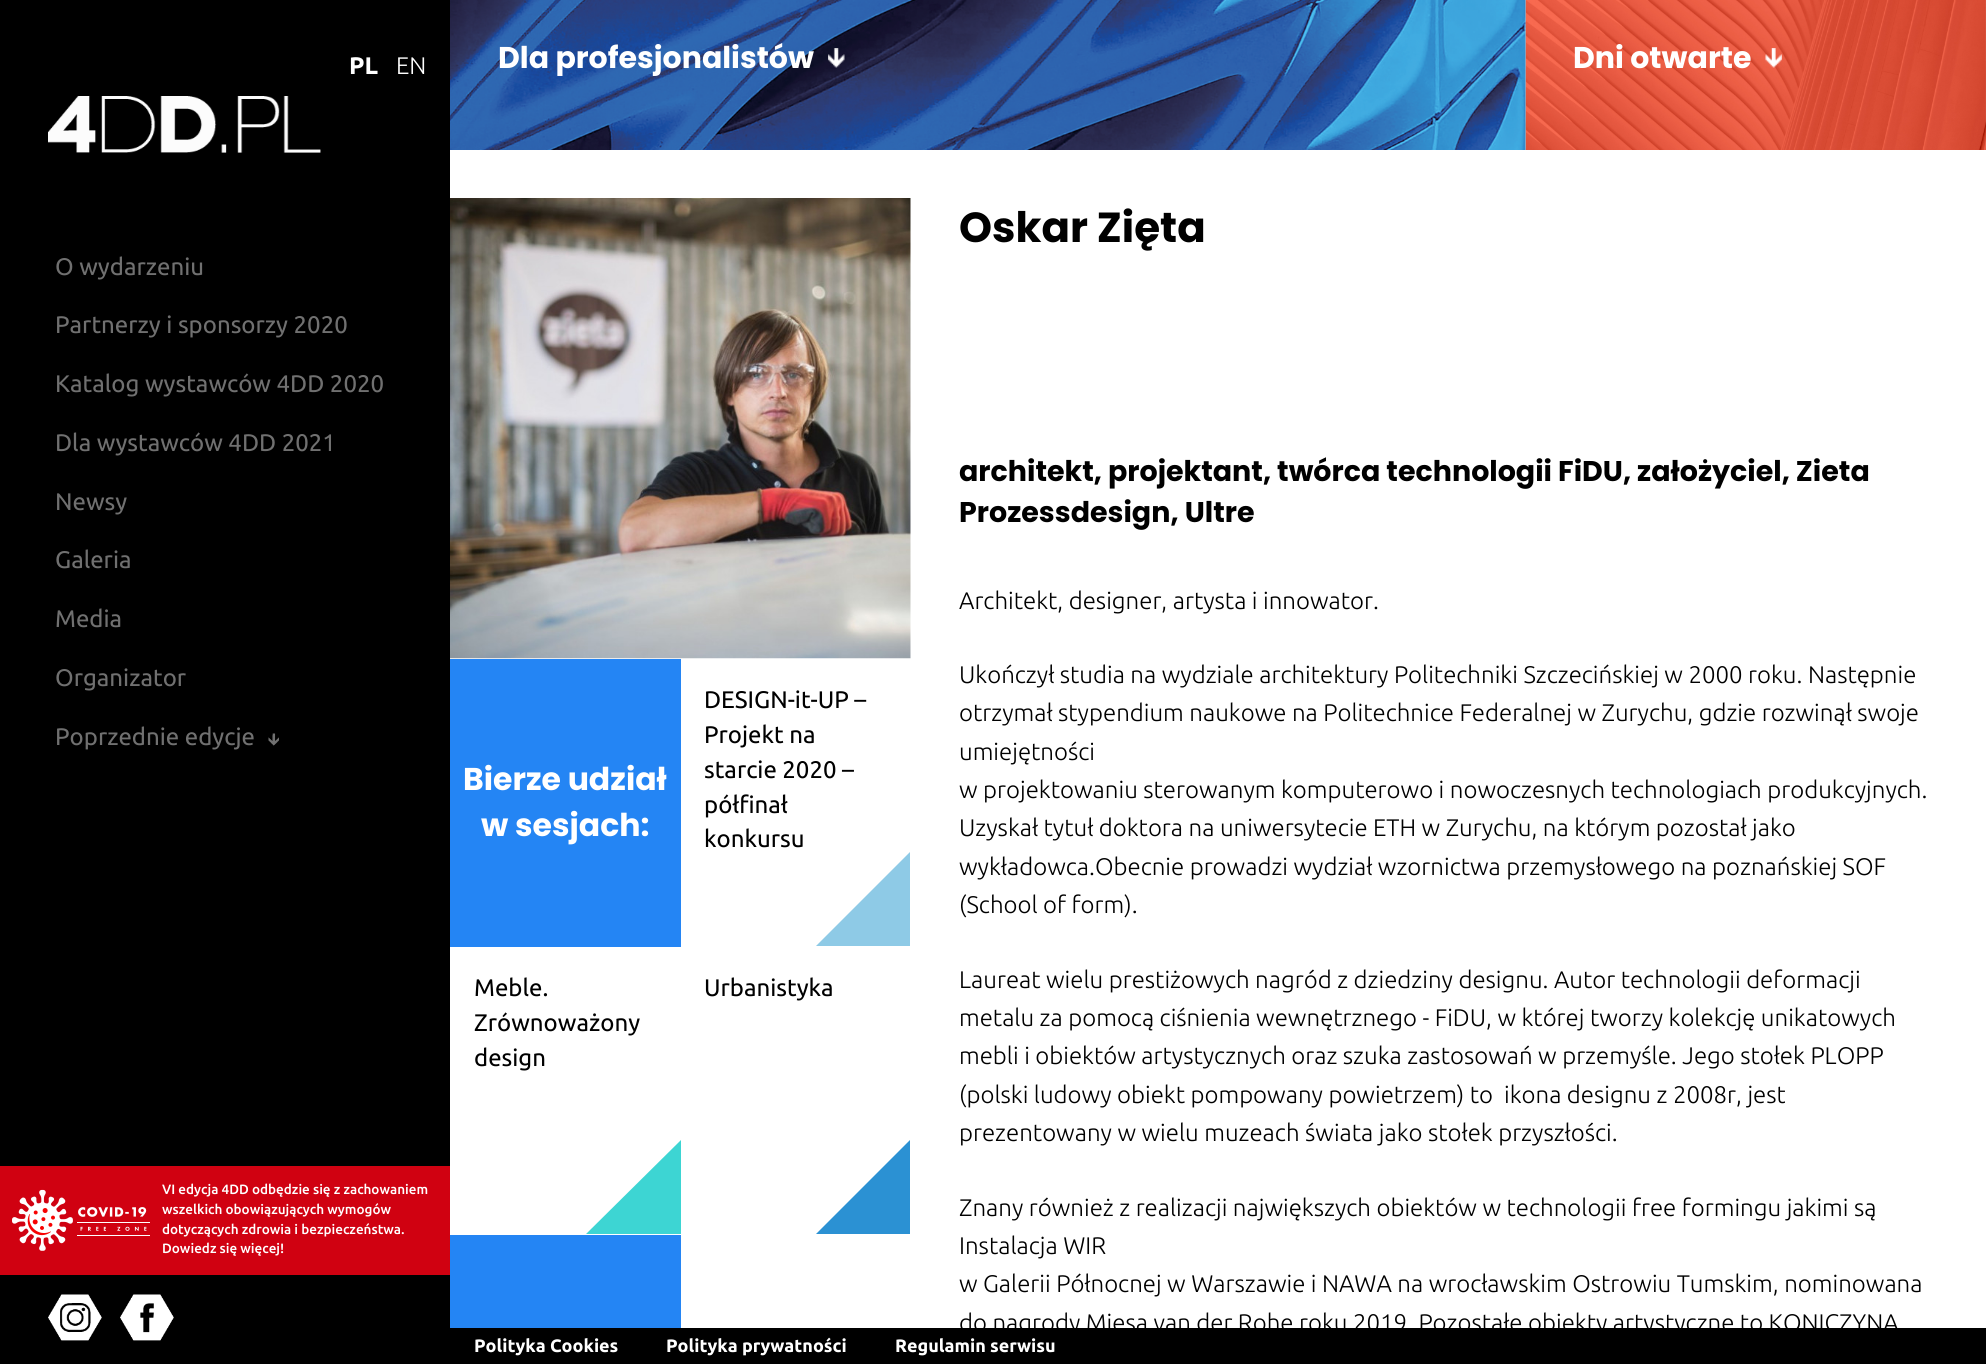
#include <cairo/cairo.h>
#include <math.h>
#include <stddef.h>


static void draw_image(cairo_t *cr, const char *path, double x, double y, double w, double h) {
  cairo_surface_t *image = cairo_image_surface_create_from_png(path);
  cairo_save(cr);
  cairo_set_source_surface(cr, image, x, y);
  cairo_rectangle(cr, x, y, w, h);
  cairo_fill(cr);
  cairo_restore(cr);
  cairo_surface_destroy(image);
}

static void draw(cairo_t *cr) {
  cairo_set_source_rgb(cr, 1, 1, 1);
  cairo_paint(cr);
  cairo_set_source_rgb(cr, 0, 0, 0);
  cairo_rectangle(cr, 0, 0, 450, 1364);
  cairo_fill(cr);
  draw_image(cr, "images/1.png", 48, 96, 273, 57);
  draw_image(cr, "images/2.png", 268, 733, 11, 13);
  cairo_set_source_rgb(cr, 208 / 255.0, 1 / 255.0, 17 / 255.0);
  cairo_rectangle(cr, 0, 1166, 450, 109);
  cairo_fill(cr);
  draw_image(cr, "images/3.png", 12, 1189, 138, 62);
  draw_image(cr, "images/4.png", 48, 1294, 54, 47);
  draw_image(cr, "images/5.png", 120, 1294, 54, 47);
  draw_image(cr, "images/8.png", 1525, 0, 461, 150);
  draw_image(cr, "images/6.png", 450, 0, 1076, 150);
  draw_image(cr, "images/7.png", 828, 48, 17, 20);
  draw_image(cr, "images/9.png", 1765, 48, 17, 20);
  draw_image(cr, "images/10.png", 450, 198, 461, 461);
  cairo_set_source_rgb(cr, 36 / 255.0, 133 / 255.0, 244 / 255.0);
  cairo_rectangle(cr, 450, 659, 231, 288);
  cairo_fill(cr);
  cairo_set_source_rgb(cr, 142 / 255.0, 202 / 255.0, 230 / 255.0);
  cairo_new_path(cr);
  cairo_move_to(cr, 910, 946);
  cairo_line_to(cr, 816, 946);
  cairo_line_to(cr, 910, 852);
  cairo_close_path(cr);
  cairo_fill(cr);
  cairo_set_source_rgb(cr, 61 / 255.0, 213 / 255.0, 211 / 255.0);
  cairo_new_path(cr);
  cairo_move_to(cr, 681, 1234);
  cairo_line_to(cr, 586, 1234);
  cairo_line_to(cr, 681, 1140);
  cairo_close_path(cr);
  cairo_fill(cr);
  cairo_set_source_rgb(cr, 43 / 255.0, 145 / 255.0, 211 / 255.0);
  cairo_new_path(cr);
  cairo_move_to(cr, 910, 1234);
  cairo_line_to(cr, 816, 1234);
  cairo_line_to(cr, 910, 1140);
  cairo_close_path(cr);
  cairo_fill(cr);
  cairo_set_source_rgb(cr, 36 / 255.0, 133 / 255.0, 244 / 255.0);
  cairo_rectangle(cr, 450, 1235, 231, 93);
  cairo_fill(cr);
  cairo_set_source_rgb(cr, 0, 0, 0);
  cairo_rectangle(cr, 450, 1328, 1536, 36);
  cairo_fill(cr);
  cairo_select_font_face(cr, "Ubuntu", CAIRO_FONT_SLANT_NORMAL, CAIRO_FONT_WEIGHT_BOLD);
  cairo_set_font_size(cr, 24);
  cairo_set_source_rgb(cr, 1, 1, 1);
  cairo_move_to(cr, 349, 74);
  cairo_show_text(cr, "PL");
  cairo_select_font_face(cr, "Ubuntu Light", CAIRO_FONT_SLANT_NORMAL, CAIRO_FONT_WEIGHT_NORMAL);
  cairo_move_to(cr, 396, 74);
  cairo_show_text(cr, "EN");
  cairo_select_font_face(cr, "Ubuntu", CAIRO_FONT_SLANT_NORMAL, CAIRO_FONT_WEIGHT_NORMAL);
  cairo_set_source_rgb(cr, 112 / 255.0, 112 / 255.0, 112 / 255.0);
  cairo_move_to(cr, 55, 275);
  cairo_show_text(cr, "O wydarzeniu");
  cairo_move_to(cr, 55, 333);
  cairo_show_text(cr, "Partnerzy i sponsorzy 2020");
  cairo_move_to(cr, 55, 392);
  cairo_show_text(cr, "Katalog wystawców 4DD 2020");
  cairo_move_to(cr, 55, 451);
  cairo_show_text(cr, "Dla wystawców 4DD 2021");
  cairo_move_to(cr, 55, 510);
  cairo_show_text(cr, "Newsy");
  cairo_move_to(cr, 55, 568);
  cairo_show_text(cr, "Galeria");
  cairo_move_to(cr, 55, 627);
  cairo_show_text(cr, "Media");
  cairo_move_to(cr, 55, 686);
  cairo_show_text(cr, "Organizator");
  cairo_move_to(cr, 55, 745);
  cairo_show_text(cr, "Poprzednie edycje");
  cairo_select_font_face(cr, "Ubuntu Medium", CAIRO_FONT_SLANT_NORMAL, CAIRO_FONT_WEIGHT_NORMAL);
  cairo_set_font_size(cr, 13.5);
  cairo_set_source_rgb(cr, 1, 1, 1);
  cairo_move_to(cr, 162, 1194);
  cairo_show_text(cr, "VI edycja 4DD odbędzie się z zachowaniem");
  cairo_move_to(cr, 162, 1214);
  cairo_show_text(cr, "wszelkich obowiązujących wymogów");
  cairo_move_to(cr, 162, 1234);
  cairo_show_text(cr, "dotyczących zdrowia i bezpieczeństwa.");
  cairo_move_to(cr, 162, 1253);
  cairo_show_text(cr, "Dowiedz się więcej!");
  cairo_select_font_face(cr, "Poppins", CAIRO_FONT_SLANT_NORMAL, CAIRO_FONT_WEIGHT_BOLD);
  cairo_set_font_size(cr, 30);
  cairo_move_to(cr, 498, 68);
  cairo_show_text(cr, "Dla profesjonalistów");
  cairo_move_to(cr, 1573, 68);
  cairo_show_text(cr, "Dni otwarte");
  cairo_set_font_size(cr, 31.5);
  cairo_move_to(cr, 463, 790);
  cairo_show_text(cr, "Bierze udział");
  cairo_move_to(cr, 481, 836);
  cairo_show_text(cr, "w sesjach:");
  cairo_select_font_face(cr, "Ubuntu", CAIRO_FONT_SLANT_NORMAL, CAIRO_FONT_WEIGHT_NORMAL);
  cairo_set_font_size(cr, 24);
  cairo_set_source_rgb(cr, 0, 0, 0);
  cairo_move_to(cr, 704, 708);
  cairo_show_text(cr, "DESIGN-it-UP –");
  cairo_move_to(cr, 704, 743);
  cairo_show_text(cr, "Projekt na");
  cairo_move_to(cr, 704, 778);
  cairo_show_text(cr, "starcie 2020 –");
  cairo_move_to(cr, 704, 813);
  cairo_show_text(cr, "półfinał");
  cairo_move_to(cr, 704, 847);
  cairo_show_text(cr, "konkursu");
  cairo_move_to(cr, 474, 996);
  cairo_show_text(cr, "Meble.");
  cairo_move_to(cr, 474, 1031);
  cairo_show_text(cr, "Zrównoważony");
  cairo_move_to(cr, 474, 1066);
  cairo_show_text(cr, "design");
  cairo_move_to(cr, 704, 996);
  cairo_show_text(cr, "Urbanistyka");
  cairo_select_font_face(cr, "Poppins", CAIRO_FONT_SLANT_NORMAL, CAIRO_FONT_WEIGHT_BOLD);
  cairo_set_font_size(cr, 42);
  cairo_move_to(cr, 959, 242);
  cairo_show_text(cr, "Oskar Zięta");
  cairo_set_font_size(cr, 28.5);
  cairo_move_to(cr, 959, 481);
  cairo_show_text(cr, "architekt, projektant, twórca technologii FiDU, założyciel, Zieta");
  cairo_move_to(cr, 959, 522);
  cairo_show_text(cr, "Prozessdesign, Ultre");
  cairo_select_font_face(cr, "Ubuntu Light", CAIRO_FONT_SLANT_NORMAL, CAIRO_FONT_WEIGHT_NORMAL);
  cairo_set_font_size(cr, 24);
  cairo_move_to(cr, 959, 609);
  cairo_show_text(cr, "Architekt, designer, artysta i innowator.");
  cairo_move_to(cr, 959, 683);
  cairo_show_text(cr, "Ukończył studia na wydziale architektury Politechniki Szczecińskiej w 2000 roku. Następnie");
  cairo_move_to(cr, 959, 721);
  cairo_show_text(cr, "otrzymał stypendium naukowe na Politechnice Federalnej w Zurychu, gdzie rozwinął swoje");
  cairo_move_to(cr, 959, 760);
  cairo_show_text(cr, "umiejętności");
  cairo_move_to(cr, 959, 798);
  cairo_show_text(cr, "w projektowaniu sterowanym komputerowo i nowoczesnych technologiach produkcyjnych.");
  cairo_move_to(cr, 959, 836);
  cairo_show_text(cr, "Uzyskał tytuł doktora na uniwersytecie ETH w Zurychu, na którym pozostał jako");
  cairo_move_to(cr, 959, 875);
  cairo_show_text(cr, "wykładowca.Obecnie prowadzi wydział wzornictwa przemysłowego na poznańskiej SOF");
  cairo_move_to(cr, 959, 913);
  cairo_show_text(cr, "(School of form).");
  cairo_move_to(cr, 959, 988);
  cairo_show_text(cr, "Laureat wielu prestiżowych nagród z dziedziny designu. Autor technologii deformacji");
  cairo_move_to(cr, 959, 1026);
  cairo_show_text(cr, "metalu za pomocą ciśnienia wewnętrznego - FiDU, w której tworzy kolekcję unikatowych");
  cairo_move_to(cr, 959, 1064);
  cairo_show_text(cr, "mebli i obiektów artystycznych oraz szuka zastosowań w przemyśle. Jego stołek PLOPP");
  cairo_move_to(cr, 959, 1103);
  cairo_show_text(cr, "(polski ludowy obiekt pompowany powietrzem) to  ikona designu z 2008r, jest");
  cairo_move_to(cr, 959, 1141);
  cairo_show_text(cr, "prezentowany w wielu muzeach świata jako stołek przyszłości.");
  cairo_move_to(cr, 959, 1216);
  cairo_show_text(cr, "Znany również z realizacji największych obiektów w technologii free formingu jakimi są");
  cairo_move_to(cr, 959, 1254);
  cairo_show_text(cr, "Instalacja WIR");
  cairo_move_to(cr, 959, 1292);
  cairo_show_text(cr, "w Galerii Północnej w Warszawie i NAWA na wrocławskim Ostrowiu Tumskim, nominowana");
  cairo_move_to(cr, 959, 1331);
  cairo_show_text(cr, "do nagrody Miesa van der Rohe roku 2019. Pozostałe obiekty artystyczne to KONICZYNA");
  cairo_select_font_face(cr, "Ubuntu", CAIRO_FONT_SLANT_NORMAL, CAIRO_FONT_WEIGHT_BOLD);
  cairo_set_font_size(cr, 18);
  cairo_set_source_rgb(cr, 1, 1, 1);
  cairo_move_to(cr, 474, 1352);
  cairo_show_text(cr, "Polityka Cookies");
  cairo_move_to(cr, 666, 1352);
  cairo_show_text(cr, "Polityka prywatności");
  cairo_move_to(cr, 895, 1352);
  cairo_show_text(cr, "Regulamin serwisu");
}

int main(void) {
  cairo_surface_t *surface = cairo_image_surface_create(CAIRO_FORMAT_RGB24, 1986, 1364);
  cairo_t *cr = cairo_create(surface);
  cairo_font_options_t *options = cairo_font_options_create();
  cairo_font_options_set_hint_metrics(options, CAIRO_HINT_METRICS_OFF);
  cairo_font_options_set_hint_style(options, CAIRO_HINT_STYLE_NONE);
  cairo_set_font_options(cr, options);
  cairo_set_miter_limit(cr, 4);
  draw(cr);
  cairo_surface_write_to_png(surface, "out.png");
  cairo_font_options_destroy(options);
  cairo_destroy(cr);
  cairo_surface_destroy(surface);
  return 0;
}
